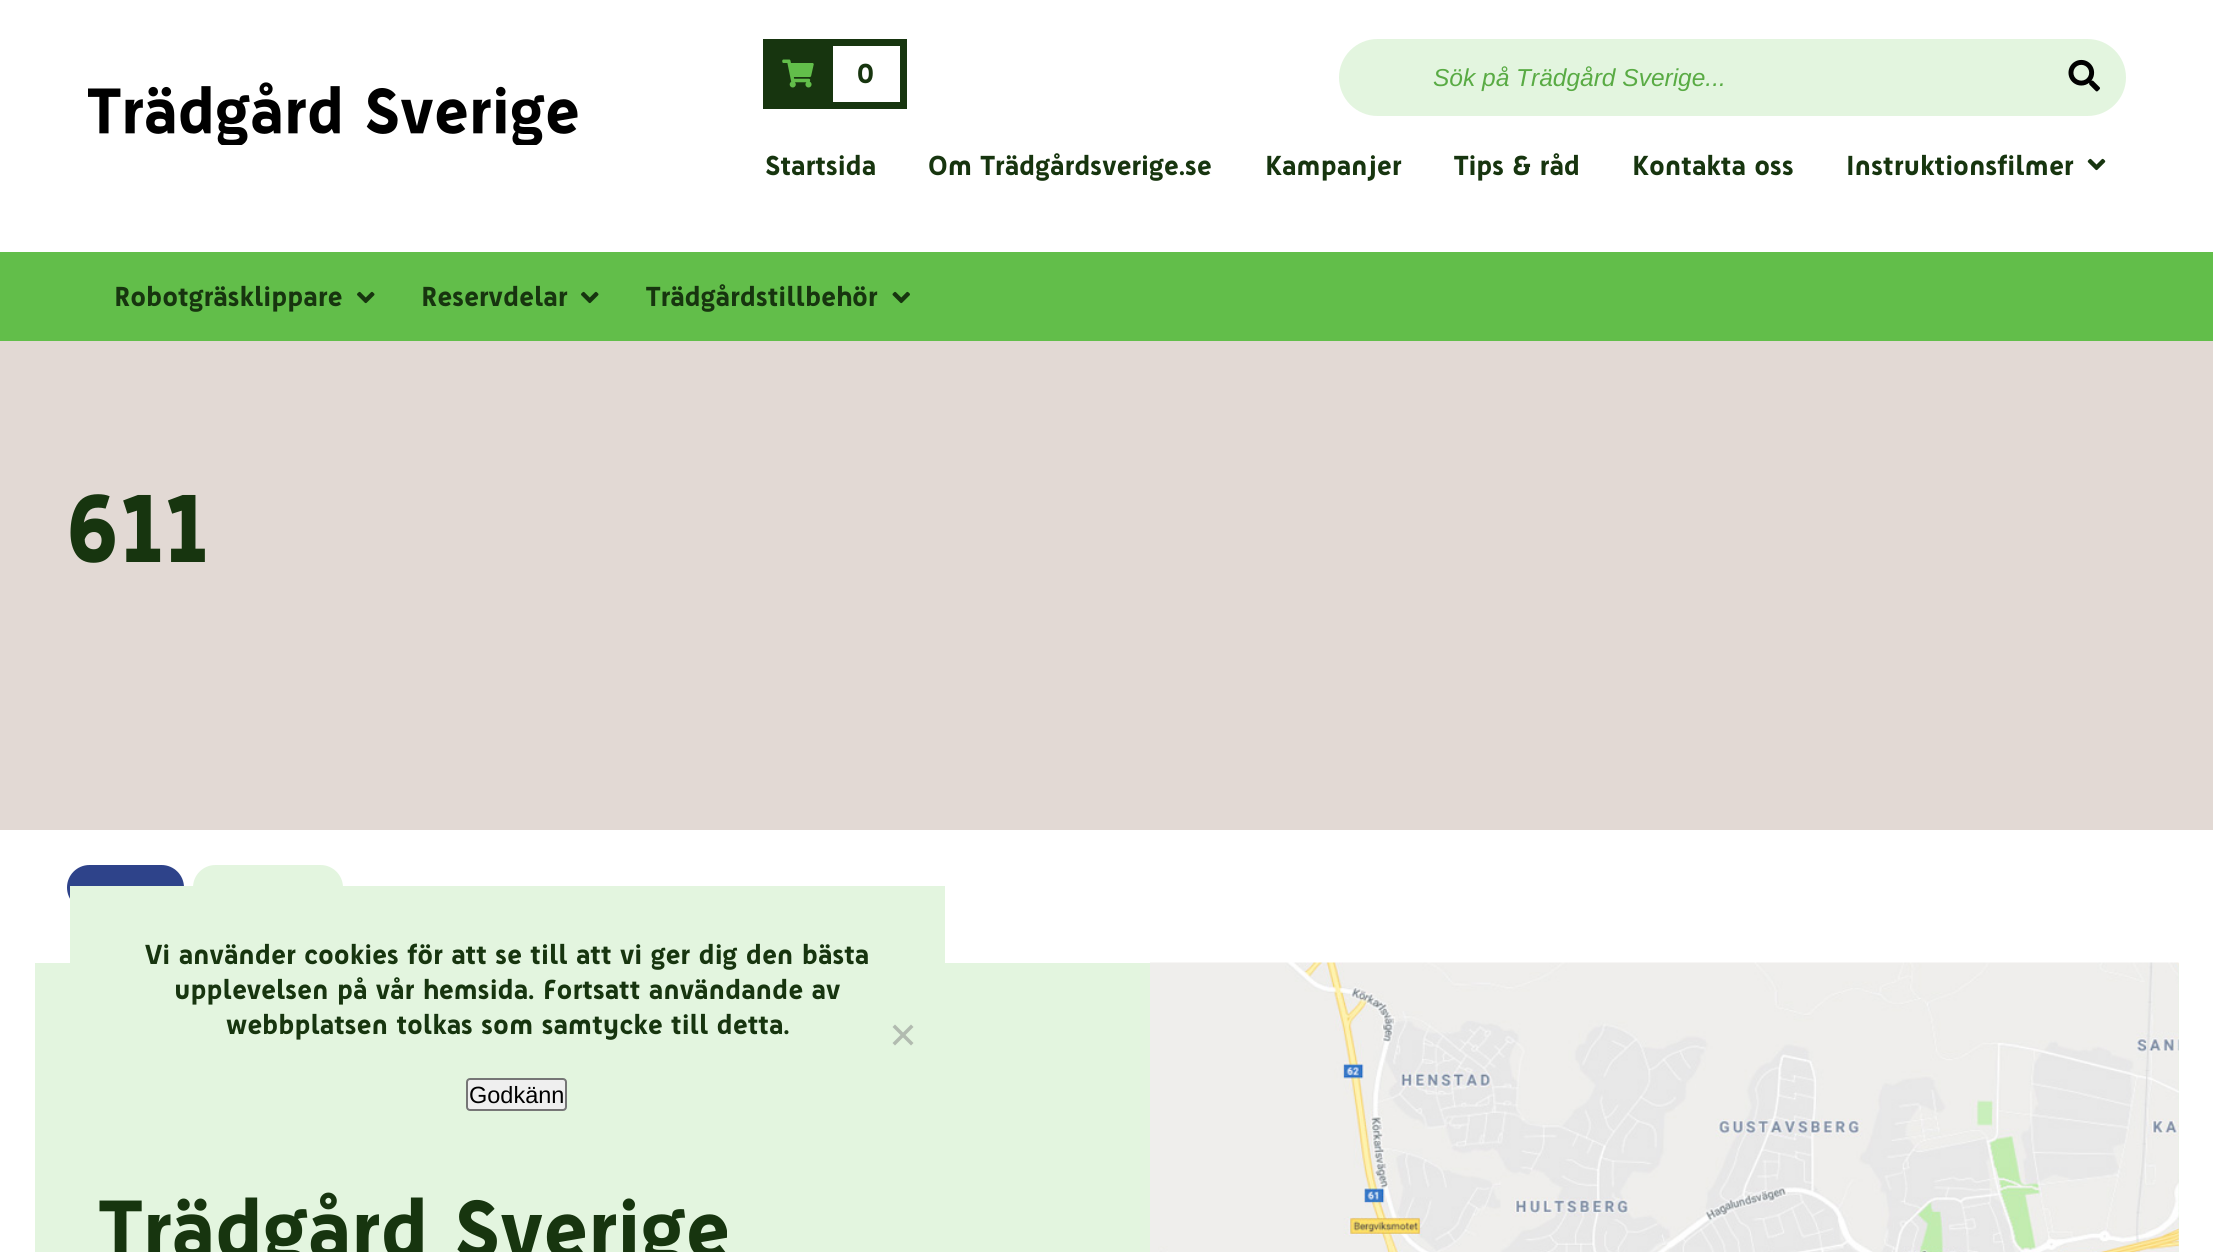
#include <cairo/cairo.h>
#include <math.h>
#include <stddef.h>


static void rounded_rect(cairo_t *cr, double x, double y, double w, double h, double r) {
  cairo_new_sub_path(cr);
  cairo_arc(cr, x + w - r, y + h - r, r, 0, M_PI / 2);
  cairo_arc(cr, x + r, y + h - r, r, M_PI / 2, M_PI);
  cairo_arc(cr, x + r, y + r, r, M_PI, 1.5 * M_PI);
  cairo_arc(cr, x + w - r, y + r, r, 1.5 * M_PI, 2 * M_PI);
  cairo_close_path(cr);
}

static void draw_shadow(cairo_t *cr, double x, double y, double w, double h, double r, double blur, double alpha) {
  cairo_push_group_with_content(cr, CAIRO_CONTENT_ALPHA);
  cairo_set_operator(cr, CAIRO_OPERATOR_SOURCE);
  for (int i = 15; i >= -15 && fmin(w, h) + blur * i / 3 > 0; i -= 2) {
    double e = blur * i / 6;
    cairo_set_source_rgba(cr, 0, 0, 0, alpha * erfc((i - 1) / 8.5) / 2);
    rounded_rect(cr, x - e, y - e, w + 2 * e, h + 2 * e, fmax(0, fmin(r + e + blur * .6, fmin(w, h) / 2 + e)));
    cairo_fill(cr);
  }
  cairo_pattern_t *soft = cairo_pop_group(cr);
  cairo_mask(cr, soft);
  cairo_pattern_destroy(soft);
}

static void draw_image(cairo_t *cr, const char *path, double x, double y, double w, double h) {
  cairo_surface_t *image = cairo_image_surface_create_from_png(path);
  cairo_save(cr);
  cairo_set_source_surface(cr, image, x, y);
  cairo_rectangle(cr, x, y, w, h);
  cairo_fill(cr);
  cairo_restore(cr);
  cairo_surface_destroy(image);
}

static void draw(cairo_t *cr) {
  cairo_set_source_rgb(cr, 1, 1, 1);
  cairo_paint(cr);
  draw_image(cr, "images/1.png", 88, 82, 490, 63);
  cairo_set_source_rgb(cr, 23 / 255.0, 53 / 255.0, 15 / 255.0);
  cairo_rectangle(cr, 763, 39, 70, 70);
  cairo_fill(cr);
  draw_image(cr, "images/2.png", 782, 59, 32, 29);
  cairo_rectangle(cr, 833, 39, 74, 7);
  cairo_fill(cr);
  cairo_rectangle(cr, 900, 39, 7, 70);
  cairo_fill(cr);
  cairo_rectangle(cr, 833, 102, 74, 7);
  cairo_fill(cr);
  cairo_set_source_rgb(cr, 227 / 255.0, 245 / 255.0, 223 / 255.0);
  rounded_rect(cr, 1339, 39, 787, 77, 38.5);
  cairo_fill(cr);
  draw_image(cr, "images/3.png", 2068, 59, 32, 33);
  draw_image(cr, "images/4.png", 2087, 158, 19, 13);
  cairo_set_source_rgb(cr, 46 / 255.0, 67 / 255.0, 138 / 255.0);
  rounded_rect(cr, 67, 865, 117, 45, 22.5);
  cairo_fill(cr);
  cairo_set_source_rgb(cr, 227 / 255.0, 245 / 255.0, 223 / 255.0);
  rounded_rect(cr, 193, 865, 150, 45, 22.5);
  cairo_fill(cr);
  cairo_save(cr);
  cairo_rectangle(cr, 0, 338, 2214, 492);
  cairo_clip(cr);
  cairo_set_source_rgb(cr, 226 / 255.0, 217 / 255.0, 212 / 255.0);
  draw_shadow(cr, -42, 268, 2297, 632, 0, 14, 1);
  cairo_restore(cr);
  cairo_set_source_rgb(cr, 98 / 255.0, 190 / 255.0, 74 / 255.0);
  cairo_rectangle(cr, 0, 252, 2213, 89);
  cairo_fill(cr);
  draw_image(cr, "images/5.png", 357, 291, 18, 13);
  draw_image(cr, "images/5.png", 581, 291, 18, 13);
  draw_image(cr, "images/6.png", 892, 291, 18, 13);
  cairo_set_source_rgb(cr, 227 / 255.0, 245 / 255.0, 223 / 255.0);
  cairo_rectangle(cr, 70, 886, 875, 77);
  cairo_fill(cr);
  cairo_rectangle(cr, 35, 963, 2144, 289);
  cairo_fill(cr);
  cairo_set_source_rgb(cr, 178 / 255.0, 187 / 255.0, 176 / 255.0);
  cairo_new_path(cr);
  cairo_move_to(cr, 911, 1024.5);
  cairo_line_to(cr, 913.5, 1027);
  cairo_line_to(cr, 895, 1045.5);
  cairo_line_to(cr, 892.5, 1043);
  cairo_close_path(cr);
  cairo_fill(cr);
  cairo_new_path(cr);
  cairo_move_to(cr, 892.5, 1027);
  cairo_line_to(cr, 895, 1024.5);
  cairo_line_to(cr, 913.5, 1043);
  cairo_line_to(cr, 911, 1045.5);
  cairo_close_path(cr);
  cairo_fill(cr);
  cairo_set_source_rgb(cr, 239 / 255.0, 239 / 255.0, 239 / 255.0);
  rounded_rect(cr, 467, 1079, 99, 31, 3);
  cairo_fill_preserve(cr);
  cairo_set_source_rgb(cr, 118 / 255.0, 118 / 255.0, 118 / 255.0);
  cairo_stroke(cr);
  draw_image(cr, "images/7.png", 1150, 962, 1029, 290);
  cairo_select_font_face(cr, "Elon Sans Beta", CAIRO_FONT_SLANT_NORMAL, CAIRO_FONT_WEIGHT_BOLD);
  cairo_set_font_size(cr, 28);
  cairo_set_source_rgb(cr, 23 / 255.0, 53 / 255.0, 15 / 255.0);
  cairo_move_to(cr, 857, 83);
  cairo_show_text(cr, "0");
  cairo_select_font_face(cr, "Liberation Sans", CAIRO_FONT_SLANT_ITALIC, CAIRO_FONT_WEIGHT_NORMAL);
  cairo_set_font_size(cr, 24.5);
  cairo_set_source_rgb(cr, 89 / 255.0, 171 / 255.0, 68 / 255.0);
  cairo_move_to(cr, 1433, 86);
  cairo_show_text(cr, "Sök på Trädgård Sverige...");
  cairo_select_font_face(cr, "Elon Sans Beta", CAIRO_FONT_SLANT_NORMAL, CAIRO_FONT_WEIGHT_BOLD);
  cairo_set_font_size(cr, 28);
  cairo_set_source_rgb(cr, 23 / 255.0, 53 / 255.0, 15 / 255.0);
  cairo_move_to(cr, 765, 175);
  cairo_show_text(cr, "Startsida");
  cairo_move_to(cr, 928, 175);
  cairo_show_text(cr, "Om Trädgårdsverige.se");
  cairo_move_to(cr, 1265, 175);
  cairo_show_text(cr, "Kampanjer");
  cairo_move_to(cr, 1454, 175);
  cairo_show_text(cr, "Tips & råd");
  cairo_move_to(cr, 1632, 175);
  cairo_show_text(cr, "Kontakta oss");
  cairo_move_to(cr, 1846, 175);
  cairo_show_text(cr, "Instruktionsfilmer");
  cairo_move_to(cr, 114, 306);
  cairo_show_text(cr, "Robotgräsklippare");
  cairo_move_to(cr, 421, 306);
  cairo_show_text(cr, "Reservdelar");
  cairo_move_to(cr, 646, 306);
  cairo_show_text(cr, "Trädgårdstillbehör");
  cairo_set_font_size(cr, 98);
  cairo_move_to(cr, 66, 562);
  cairo_show_text(cr, "611");
  cairo_set_font_size(cr, 28);
  cairo_move_to(cr, 145, 964);
  cairo_show_text(cr, "Vi använder cookies för att se till att vi ger dig den bästa");
  cairo_move_to(cr, 174, 999);
  cairo_show_text(cr, "upplevelsen på vår hemsida. Fortsatt användande av");
  cairo_move_to(cr, 226, 1034);
  cairo_show_text(cr, "webbplatsen tolkas som samtycke till detta.");
  cairo_select_font_face(cr, "Liberation Sans", CAIRO_FONT_SLANT_NORMAL, CAIRO_FONT_WEIGHT_NORMAL);
  cairo_set_font_size(cr, 23.5);
  cairo_set_source_rgb(cr, 0, 0, 0);
  cairo_move_to(cr, 469, 1103);
  cairo_show_text(cr, "Godkänn");
  cairo_select_font_face(cr, "Elon Sans Beta", CAIRO_FONT_SLANT_NORMAL, CAIRO_FONT_WEIGHT_BOLD);
  cairo_set_font_size(cr, 84);
  cairo_set_source_rgb(cr, 23 / 255.0, 53 / 255.0, 15 / 255.0);
  cairo_move_to(cr, 99, 1258);
  cairo_show_text(cr, "Trädgård Sverige");
}

int main(void) {
  cairo_surface_t *surface = cairo_image_surface_create(CAIRO_FORMAT_RGB24, 2213, 1252);
  cairo_t *cr = cairo_create(surface);
  cairo_font_options_t *options = cairo_font_options_create();
  cairo_font_options_set_hint_metrics(options, CAIRO_HINT_METRICS_OFF);
  cairo_font_options_set_hint_style(options, CAIRO_HINT_STYLE_NONE);
  cairo_set_font_options(cr, options);
  cairo_set_miter_limit(cr, 4);
  draw(cr);
  cairo_surface_write_to_png(surface, "out.png");
  cairo_font_options_destroy(options);
  cairo_destroy(cr);
  cairo_surface_destroy(surface);
  return 0;
}
